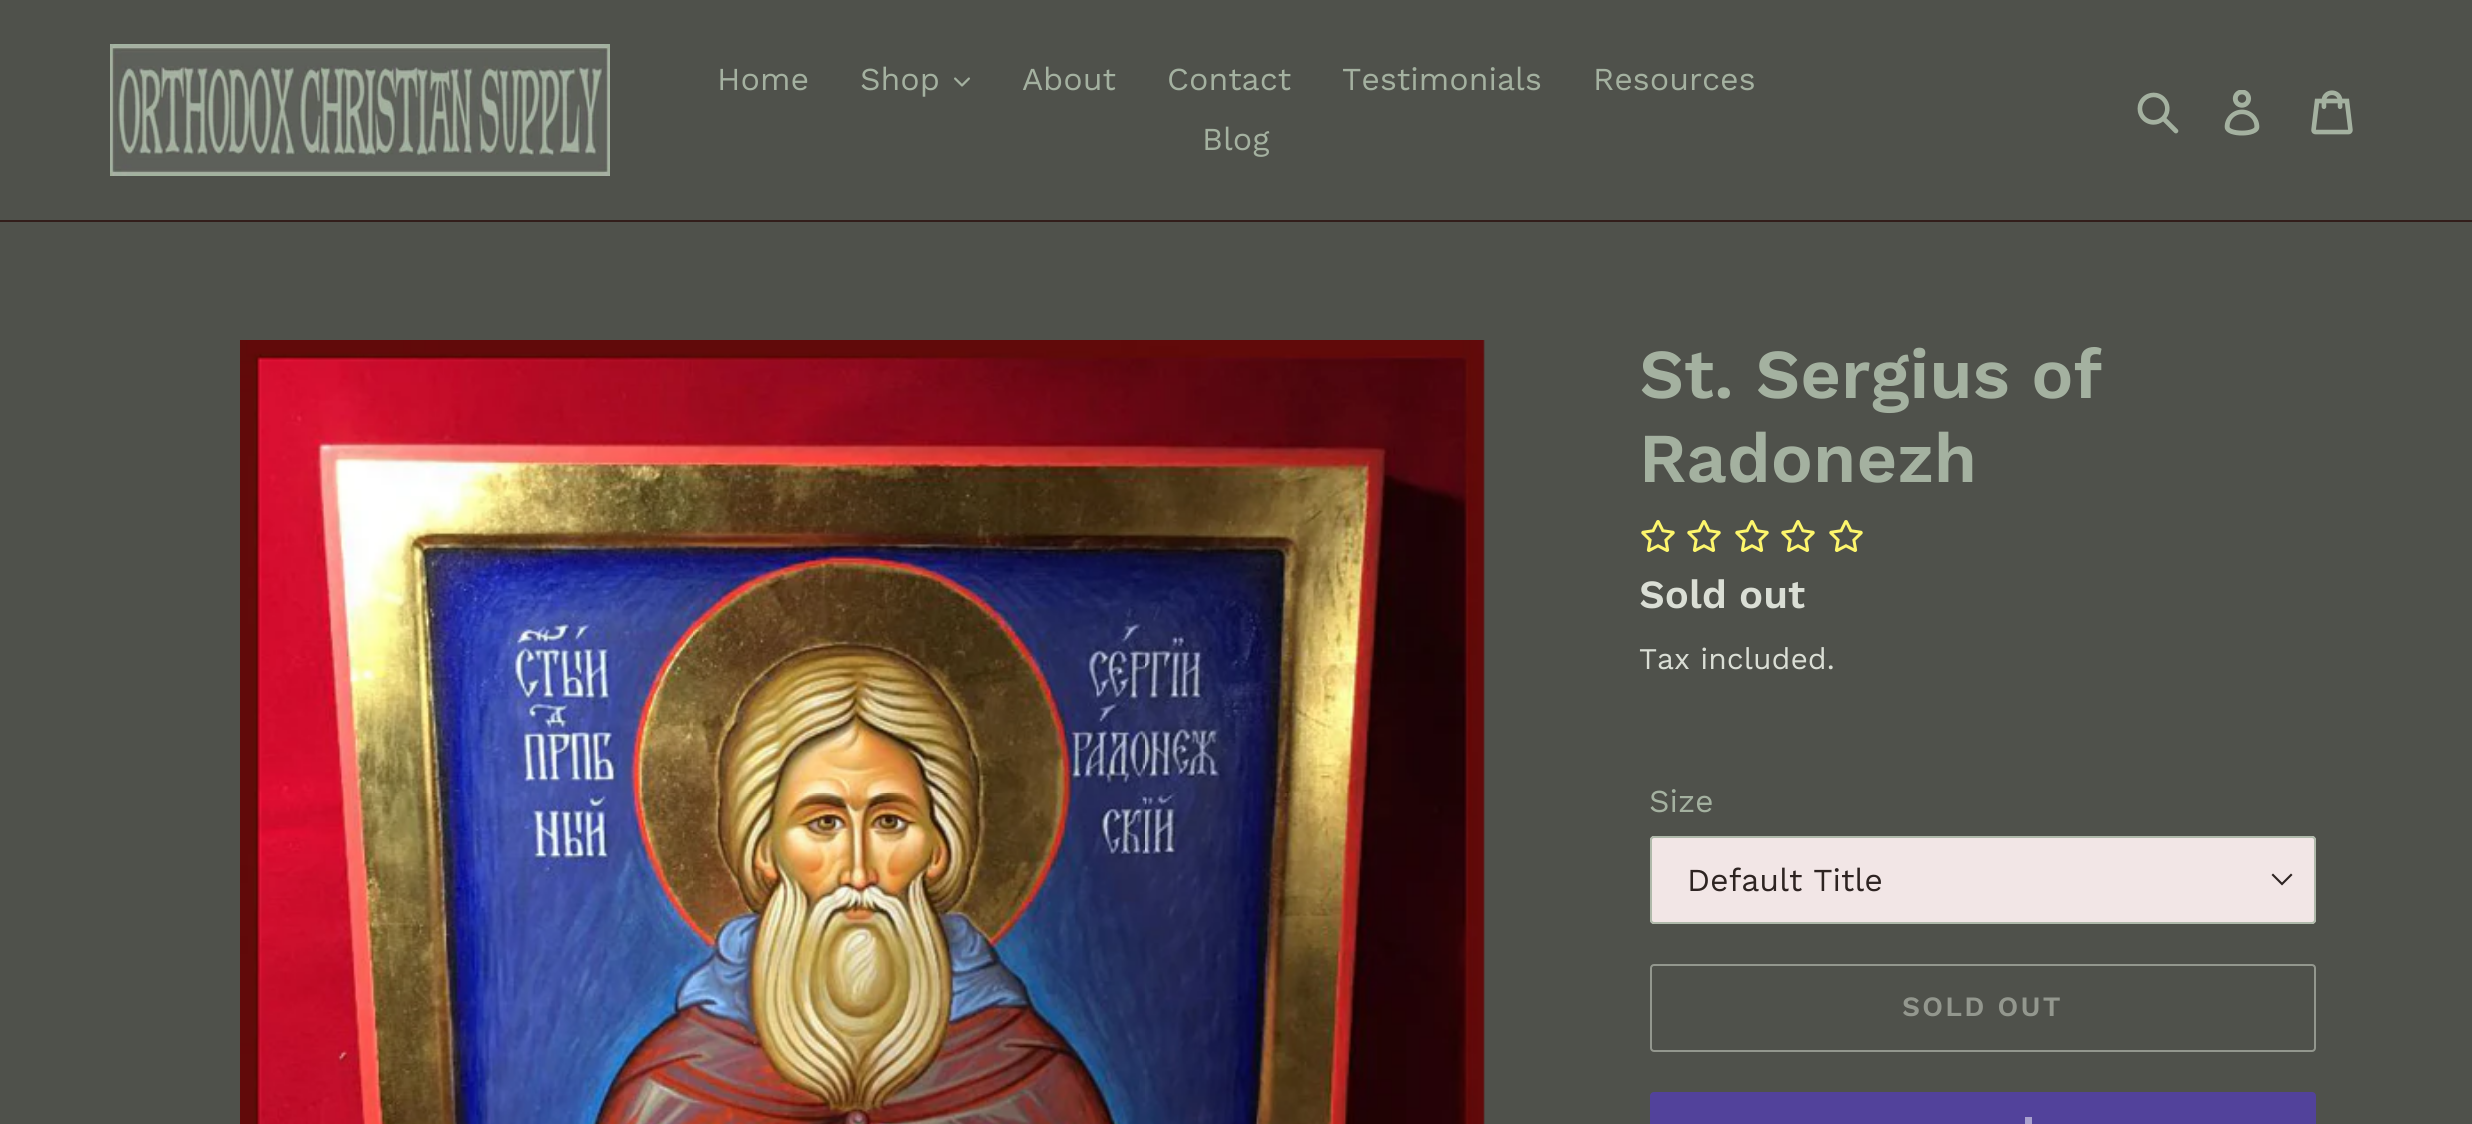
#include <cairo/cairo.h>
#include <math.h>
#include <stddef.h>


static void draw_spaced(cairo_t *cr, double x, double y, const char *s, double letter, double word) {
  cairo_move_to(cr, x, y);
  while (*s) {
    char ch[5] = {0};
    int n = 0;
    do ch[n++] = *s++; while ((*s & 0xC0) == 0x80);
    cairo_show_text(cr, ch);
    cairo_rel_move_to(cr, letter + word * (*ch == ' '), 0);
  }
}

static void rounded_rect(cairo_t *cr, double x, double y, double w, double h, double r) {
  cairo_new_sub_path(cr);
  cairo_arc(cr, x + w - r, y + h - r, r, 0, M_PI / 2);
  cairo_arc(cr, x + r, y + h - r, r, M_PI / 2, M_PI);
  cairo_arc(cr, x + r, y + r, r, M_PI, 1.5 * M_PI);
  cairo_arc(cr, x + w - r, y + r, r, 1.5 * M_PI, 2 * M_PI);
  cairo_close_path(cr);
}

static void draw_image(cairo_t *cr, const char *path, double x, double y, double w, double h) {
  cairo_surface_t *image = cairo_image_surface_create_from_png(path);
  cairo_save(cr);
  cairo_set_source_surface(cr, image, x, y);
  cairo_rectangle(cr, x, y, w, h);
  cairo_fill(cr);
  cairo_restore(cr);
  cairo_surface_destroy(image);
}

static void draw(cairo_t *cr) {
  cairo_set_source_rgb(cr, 79 / 255.0, 81 / 255.0, 75 / 255.0);
  cairo_paint(cr);
  cairo_set_source_rgb(cr, 50 / 255.0, 29 / 255.0, 26 / 255.0);
  cairo_rectangle(cr, 0, 220, 2472, 2);
  cairo_fill(cr);
  draw_image(cr, "images/1.png", 110, 44, 500, 132);
  draw_image(cr, "images/2.png", 954, 77, 16, 10);
  draw_image(cr, "images/3.png", 2137, 92, 42, 42);
  draw_image(cr, "images/4.png", 2224, 90, 36, 46);
  draw_image(cr, "images/5.png", 2311, 90, 42, 45);
  draw_image(cr, "images/6.png", 240, 340, 1245, 784);
  draw_image(cr, "images/7.png", 1641, 520, 34, 32);
  draw_image(cr, "images/7.png", 1687, 520, 34, 32);
  draw_image(cr, "images/7.png", 1735, 520, 34, 32);
  draw_image(cr, "images/7.png", 1781, 520, 34, 32);
  draw_image(cr, "images/7.png", 1829, 520, 34, 32);
  cairo_set_source_rgb(cr, 242 / 255.0, 230 / 255.0, 230 / 255.0);
  rounded_rect(cr, 1650, 836, 666, 88, 4);
  cairo_fill(cr);
  cairo_set_source_rgb(cr, 46 / 255.0, 36 / 255.0, 34 / 255.0);
  cairo_new_path(cr);
  cairo_move_to(cr, 2282, 885.5);
  cairo_line_to(cr, 2271.5, 875);
  cairo_line_to(cr, 2273, 873.5);
  cairo_line_to(cr, 2282, 882.5);
  cairo_line_to(cr, 2291, 873.5);
  cairo_line_to(cr, 2292.5, 875);
  cairo_close_path(cr);
  cairo_fill(cr);
  rounded_rect(cr, 1651, 837, 664, 86, 3);
  cairo_set_source_rgba(cr, 164 / 255.0, 177 / 255.0, 160 / 255.0, 0.85);
  cairo_stroke(cr);
  rounded_rect(cr, 1651, 965, 664, 86, 3);
  cairo_set_source_rgb(cr, 147 / 255.0, 151 / 255.0, 142 / 255.0);
  cairo_stroke(cr);
  cairo_set_source_rgb(cr, 82 / 255.0, 66 / 255.0, 155 / 255.0);
  rounded_rect(cr, 1650, 1092, 666, 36, 4);
  cairo_fill(cr);
  cairo_set_source_rgb(cr, 169 / 255.0, 161 / 255.0, 205 / 255.0);
  cairo_rectangle(cr, 2025, 1117, 7, 7);
  cairo_fill(cr);
  cairo_select_font_face(cr, "Work Sans", CAIRO_FONT_SLANT_NORMAL, CAIRO_FONT_WEIGHT_NORMAL);
  cairo_set_font_size(cr, 32);
  cairo_set_source_rgb(cr, 164 / 255.0, 177 / 255.0, 160 / 255.0);
  cairo_move_to(cr, 717, 90);
  cairo_show_text(cr, "Home");
  cairo_move_to(cr, 860, 90);
  cairo_show_text(cr, "Shop");
  cairo_move_to(cr, 1022, 90);
  cairo_show_text(cr, "About");
  cairo_move_to(cr, 1167, 90);
  cairo_show_text(cr, "Contact");
  cairo_move_to(cr, 1342, 90);
  cairo_show_text(cr, "Testimonials");
  cairo_move_to(cr, 1593, 90);
  cairo_show_text(cr, "Resources");
  cairo_move_to(cr, 1202, 150);
  cairo_show_text(cr, "Blog");
  cairo_select_font_face(cr, "Work Sans SemiBold", CAIRO_FONT_SLANT_NORMAL, CAIRO_FONT_WEIGHT_NORMAL);
  cairo_set_font_size(cr, 70);
  cairo_move_to(cr, 1639, 398);
  cairo_show_text(cr, "St. Sergius of");
  cairo_move_to(cr, 1639, 482);
  cairo_show_text(cr, "Radonezh");
  cairo_set_font_size(cr, 40);
  cairo_set_source_rgb(cr, 218 / 255.0, 222 / 255.0, 213 / 255.0);
  cairo_move_to(cr, 1639, 608);
  cairo_show_text(cr, "Sold out");
  cairo_select_font_face(cr, "Work Sans", CAIRO_FONT_SLANT_NORMAL, CAIRO_FONT_WEIGHT_NORMAL);
  cairo_set_font_size(cr, 30);
  cairo_move_to(cr, 1639, 669);
  cairo_show_text(cr, "Tax included.");
  cairo_set_font_size(cr, 32);
  cairo_set_source_rgb(cr, 164 / 255.0, 177 / 255.0, 160 / 255.0);
  cairo_move_to(cr, 1649, 812);
  cairo_show_text(cr, "Size");
  cairo_set_source_rgb(cr, 46 / 255.0, 36 / 255.0, 34 / 255.0);
  cairo_move_to(cr, 1687, 891);
  cairo_show_text(cr, "Default Title");
  cairo_select_font_face(cr, "Work Sans SemiBold", CAIRO_FONT_SLANT_NORMAL, CAIRO_FONT_WEIGHT_NORMAL);
  cairo_set_font_size(cr, 28);
  cairo_set_source_rgb(cr, 147 / 255.0, 151 / 255.0, 142 / 255.0);
  draw_spaced(cr, 1902, 1016, "SOLD OUT", 2.25, 0);
}

int main(void) {
  cairo_surface_t *surface = cairo_image_surface_create(CAIRO_FORMAT_RGB24, 2472, 1124);
  cairo_t *cr = cairo_create(surface);
  cairo_font_options_t *options = cairo_font_options_create();
  cairo_font_options_set_hint_metrics(options, CAIRO_HINT_METRICS_OFF);
  cairo_font_options_set_hint_style(options, CAIRO_HINT_STYLE_NONE);
  cairo_set_font_options(cr, options);
  cairo_set_miter_limit(cr, 4);
  draw(cr);
  cairo_surface_write_to_png(surface, "out.png");
  cairo_font_options_destroy(options);
  cairo_destroy(cr);
  cairo_surface_destroy(surface);
  return 0;
}
